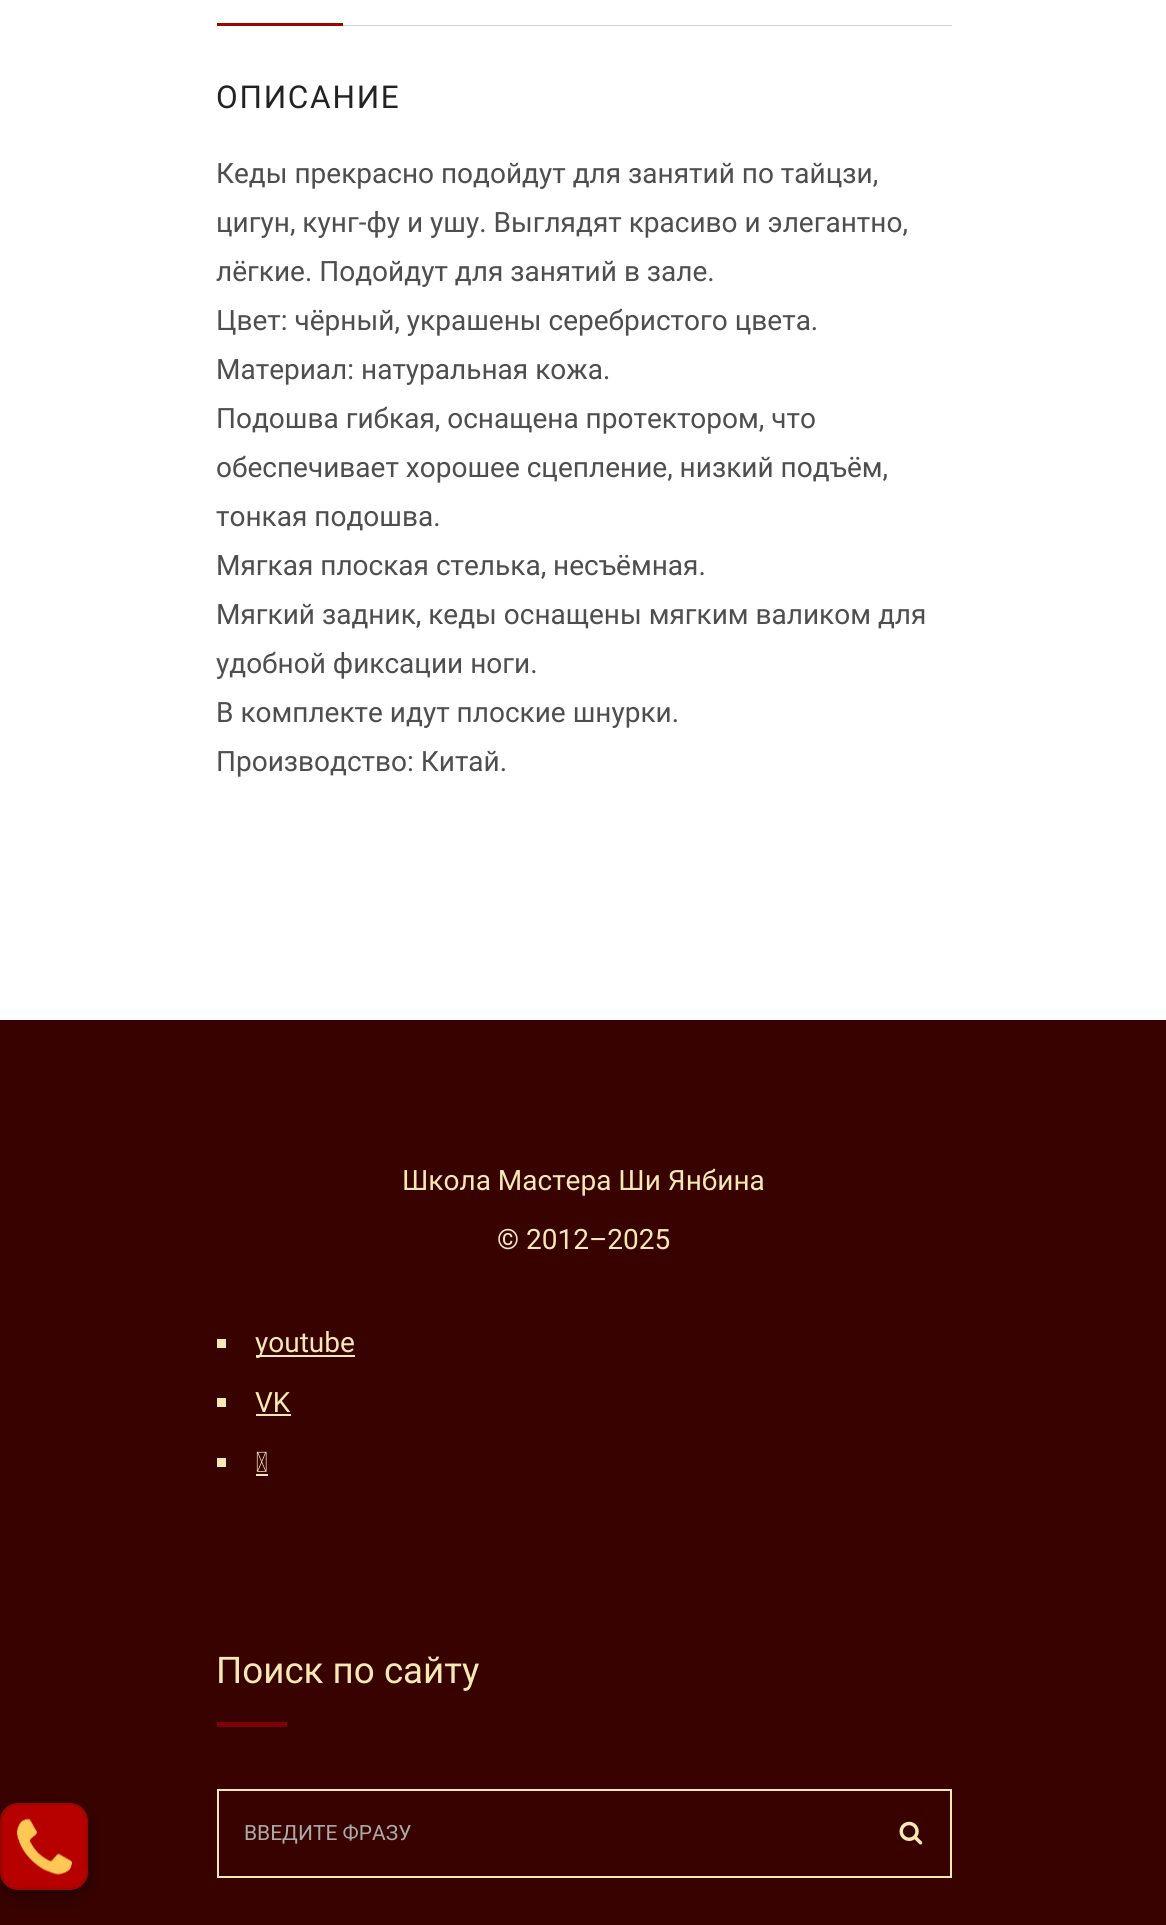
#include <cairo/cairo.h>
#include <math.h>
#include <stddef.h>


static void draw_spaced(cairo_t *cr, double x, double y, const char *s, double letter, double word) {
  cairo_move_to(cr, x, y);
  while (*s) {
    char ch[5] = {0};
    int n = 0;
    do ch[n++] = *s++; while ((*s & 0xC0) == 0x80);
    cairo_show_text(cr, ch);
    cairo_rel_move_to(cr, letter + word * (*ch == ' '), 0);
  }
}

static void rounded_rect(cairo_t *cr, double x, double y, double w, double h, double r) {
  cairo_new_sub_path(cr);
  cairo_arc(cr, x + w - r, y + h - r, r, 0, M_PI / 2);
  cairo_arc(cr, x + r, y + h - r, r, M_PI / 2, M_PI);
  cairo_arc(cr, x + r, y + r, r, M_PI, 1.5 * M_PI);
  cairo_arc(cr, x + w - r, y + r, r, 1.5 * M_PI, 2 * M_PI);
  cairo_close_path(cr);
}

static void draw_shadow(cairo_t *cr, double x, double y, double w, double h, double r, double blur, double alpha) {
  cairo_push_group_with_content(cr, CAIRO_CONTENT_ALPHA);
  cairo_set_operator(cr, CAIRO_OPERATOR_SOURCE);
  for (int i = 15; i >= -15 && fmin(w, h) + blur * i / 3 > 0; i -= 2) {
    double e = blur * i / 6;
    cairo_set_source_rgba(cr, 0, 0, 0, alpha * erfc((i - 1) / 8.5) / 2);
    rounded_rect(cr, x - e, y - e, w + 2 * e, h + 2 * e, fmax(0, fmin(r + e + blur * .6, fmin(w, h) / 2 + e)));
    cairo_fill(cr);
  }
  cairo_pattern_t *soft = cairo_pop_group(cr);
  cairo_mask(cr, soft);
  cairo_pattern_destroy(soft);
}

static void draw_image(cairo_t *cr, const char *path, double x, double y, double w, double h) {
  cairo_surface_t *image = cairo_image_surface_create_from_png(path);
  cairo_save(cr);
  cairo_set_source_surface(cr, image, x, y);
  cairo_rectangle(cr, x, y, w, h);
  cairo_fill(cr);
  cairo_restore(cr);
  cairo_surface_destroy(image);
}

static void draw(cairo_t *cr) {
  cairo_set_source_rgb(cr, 1, 1, 1);
  cairo_paint(cr);
  cairo_set_source_rgb(cr, 155 / 255.0, 6 / 255.0, 0);
  cairo_rectangle(cr, 217, 23, 126, 3);
  cairo_fill(cr);
  cairo_set_source_rgb(cr, 211 / 255.0, 206 / 255.0, 210 / 255.0);
  cairo_rectangle(cr, 343, 25, 609, 1);
  cairo_fill(cr);
  cairo_set_source_rgb(cr, 55 / 255.0, 2 / 255.0, 0);
  cairo_rectangle(cr, 0, 1020, 1166, 905);
  cairo_fill(cr);
  cairo_set_source_rgb(cr, 0, 0, 0);
  draw_shadow(cr, 0, 1810, 88, 87, 18, 7, 0.3);
  cairo_set_source_rgb(cr, 155 / 255.0, 6 / 255.0, 0);
  rounded_rect(cr, 0, 1803, 88, 87, 18);
  cairo_fill(cr);
  draw_image(cr, "images/1.png", 2, 1804, 84, 85);
  cairo_set_source_rgb(cr, 248 / 255.0, 232 / 255.0, 178 / 255.0);
  cairo_rectangle(cr, 217, 1339, 9, 9);
  cairo_fill(cr);
  cairo_rectangle(cr, 256, 1355, 99, 2);
  cairo_fill(cr);
  cairo_rectangle(cr, 217, 1398, 9, 9);
  cairo_fill(cr);
  cairo_rectangle(cr, 256, 1414, 35, 2);
  cairo_fill(cr);
  cairo_rectangle(cr, 217, 1458, 9, 9);
  cairo_fill(cr);
  draw_image(cr, "images/2.png", 256, 1451, 11, 21);
  cairo_rectangle(cr, 256, 1474, 12, 2);
  cairo_fill(cr);
  cairo_set_source_rgb(cr, 123 / 255.0, 3 / 255.0, 6 / 255.0);
  cairo_rectangle(cr, 217, 1722, 70, 5);
  cairo_fill(cr);
  cairo_rectangle(cr, 218, 1790, 733, 87);
  cairo_set_source_rgb(cr, 248 / 255.0, 232 / 255.0, 178 / 255.0);
  cairo_stroke(cr);
  draw_image(cr, "images/3.png", 899, 1821, 24, 24);
  cairo_select_font_face(cr, "Roboto", CAIRO_FONT_SLANT_NORMAL, CAIRO_FONT_WEIGHT_NORMAL);
  cairo_set_font_size(cr, 31.5);
  cairo_set_source_rgb(cr, 34 / 255.0, 34 / 255.0, 34 / 255.0);
  draw_spaced(cr, 216, 108, "ОПИСАНИЕ", 1.75, 0);
  cairo_set_font_size(cr, 28);
  cairo_set_source_rgb(cr, 78 / 255.0, 78 / 255.0, 78 / 255.0);
  cairo_move_to(cr, 216, 183);
  cairo_show_text(cr, "Кеды прекрасно подойдут для занятий по тайцзи,");
  cairo_move_to(cr, 216, 232);
  cairo_show_text(cr, "цигун, кунг-фу и ушу. Выглядят красиво и элегантно,");
  cairo_move_to(cr, 216, 281);
  cairo_show_text(cr, "лёгкие. Подойдут для занятий в зале.");
  cairo_move_to(cr, 216, 330);
  cairo_show_text(cr, "Цвет: чёрный, украшены серебристого цвета.");
  cairo_move_to(cr, 216, 379);
  cairo_show_text(cr, "Материал: натуральная кожа.");
  cairo_move_to(cr, 216, 428);
  cairo_show_text(cr, "Подошва гибкая, оснащена протектором, что");
  cairo_move_to(cr, 216, 477);
  cairo_show_text(cr, "обеспечивает хорошее сцепление, низкий подъём,");
  cairo_move_to(cr, 216, 526);
  cairo_show_text(cr, "тонкая подошва.");
  cairo_move_to(cr, 216, 575);
  cairo_show_text(cr, "Мягкая плоская стелька, несъёмная.");
  cairo_move_to(cr, 216, 624);
  cairo_show_text(cr, "Мягкий задник, кеды оснащены мягким валиком для");
  cairo_move_to(cr, 216, 673);
  cairo_show_text(cr, "удобной фиксации ноги.");
  cairo_move_to(cr, 216, 722);
  cairo_show_text(cr, "В комплекте идут плоские шнурки.");
  cairo_move_to(cr, 216, 771);
  cairo_show_text(cr, "Производство: Китай.");
  cairo_set_source_rgb(cr, 248 / 255.0, 232 / 255.0, 178 / 255.0);
  cairo_move_to(cr, 402, 1190);
  cairo_show_text(cr, "Школа Мастера Ши Янбина");
  cairo_move_to(cr, 497, 1249);
  cairo_show_text(cr, "© 2012–2025");
  cairo_move_to(cr, 255, 1352);
  cairo_show_text(cr, "youtube");
  cairo_move_to(cr, 255, 1412);
  cairo_show_text(cr, "VK");
  cairo_set_font_size(cr, 36.75);
  cairo_move_to(cr, 216, 1683);
  cairo_show_text(cr, "Поиск по сайту");
  cairo_set_font_size(cr, 21);
  cairo_set_source_rgb(cr, 170 / 255.0, 170 / 255.0, 170 / 255.0);
  cairo_move_to(cr, 244, 1840);
  cairo_show_text(cr, "ВВЕДИТЕ ФРАЗУ");
}

int main(void) {
  cairo_surface_t *surface = cairo_image_surface_create(CAIRO_FORMAT_RGB24, 1166, 1925);
  cairo_t *cr = cairo_create(surface);
  cairo_font_options_t *options = cairo_font_options_create();
  cairo_font_options_set_hint_metrics(options, CAIRO_HINT_METRICS_OFF);
  cairo_font_options_set_hint_style(options, CAIRO_HINT_STYLE_NONE);
  cairo_set_font_options(cr, options);
  cairo_set_miter_limit(cr, 4);
  draw(cr);
  cairo_surface_write_to_png(surface, "out.png");
  cairo_font_options_destroy(options);
  cairo_destroy(cr);
  cairo_surface_destroy(surface);
  return 0;
}
